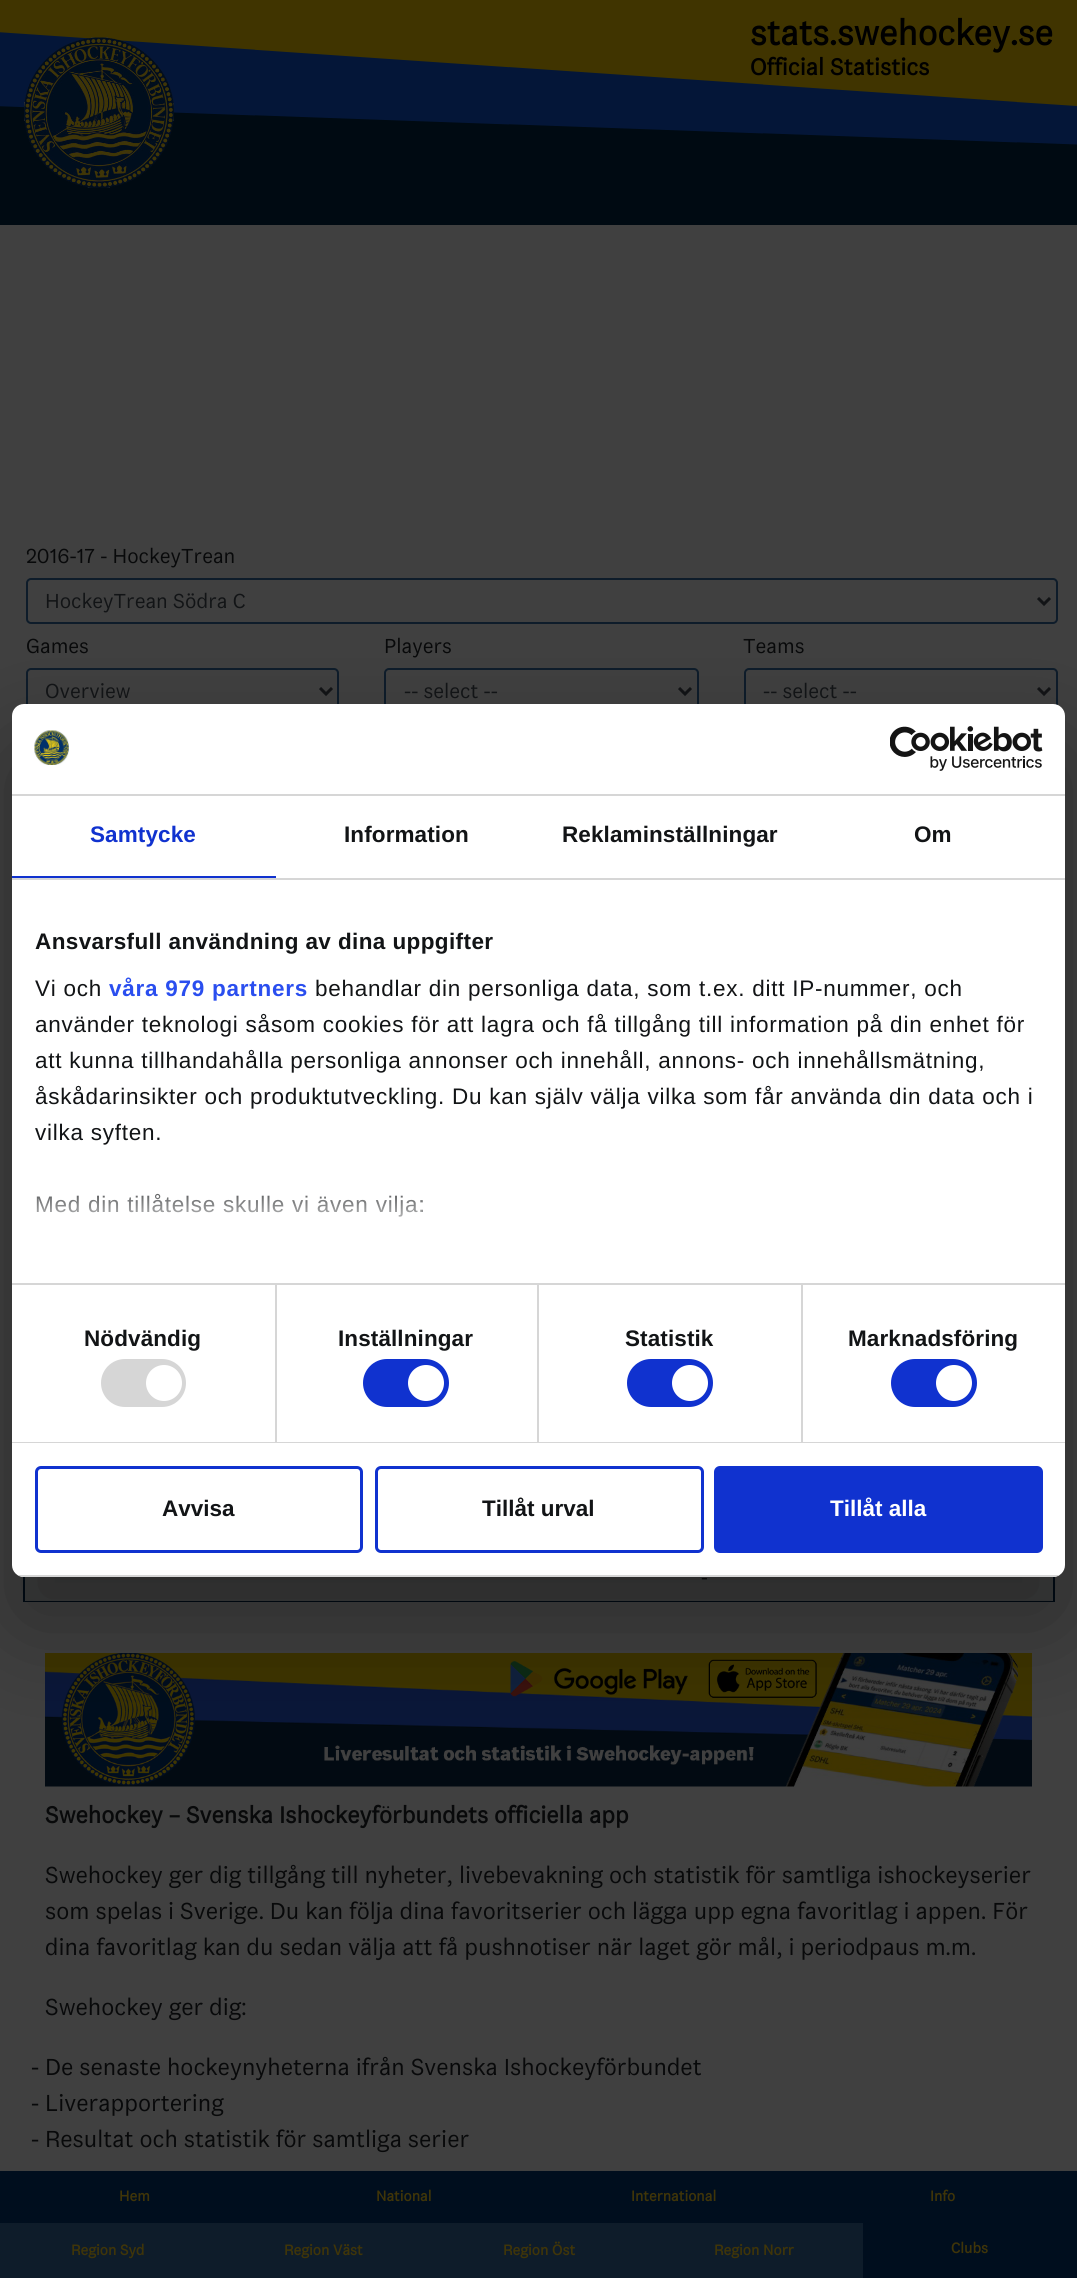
#include <cairo/cairo.h>
#include <math.h>
#include <stddef.h>


static void draw_spaced(cairo_t *cr, double x, double y, const char *s, double letter, double word) {
  cairo_move_to(cr, x, y);
  while (*s) {
    char ch[5] = {0};
    int n = 0;
    do ch[n++] = *s++; while ((*s & 0xC0) == 0x80);
    cairo_show_text(cr, ch);
    cairo_rel_move_to(cr, letter + word * (*ch == ' '), 0);
  }
}

static void rounded_rect(cairo_t *cr, double x, double y, double w, double h, double r) {
  cairo_new_sub_path(cr);
  cairo_arc(cr, x + w - r, y + h - r, r, 0, M_PI / 2);
  cairo_arc(cr, x + r, y + h - r, r, M_PI / 2, M_PI);
  cairo_arc(cr, x + r, y + r, r, M_PI, 1.5 * M_PI);
  cairo_arc(cr, x + w - r, y + r, r, 1.5 * M_PI, 2 * M_PI);
  cairo_close_path(cr);
}

static void draw_shadow(cairo_t *cr, double x, double y, double w, double h, double r, double blur, double alpha) {
  cairo_push_group_with_content(cr, CAIRO_CONTENT_ALPHA);
  cairo_set_operator(cr, CAIRO_OPERATOR_SOURCE);
  for (int i = 15; i >= -15 && fmin(w, h) + blur * i / 3 > 0; i -= 2) {
    double e = blur * i / 6;
    cairo_set_source_rgba(cr, 0, 0, 0, alpha * erfc((i - 1) / 8.5) / 2);
    rounded_rect(cr, x - e, y - e, w + 2 * e, h + 2 * e, fmax(0, fmin(r + e + blur * .6, fmin(w, h) / 2 + e)));
    cairo_fill(cr);
  }
  cairo_pattern_t *soft = cairo_pop_group(cr);
  cairo_mask(cr, soft);
  cairo_pattern_destroy(soft);
}

static void draw_image(cairo_t *cr, const char *path, double x, double y, double w, double h) {
  cairo_surface_t *image = cairo_image_surface_create_from_png(path);
  cairo_save(cr);
  cairo_set_source_surface(cr, image, x, y);
  cairo_rectangle(cr, x, y, w, h);
  cairo_fill(cr);
  cairo_restore(cr);
  cairo_surface_destroy(image);
}

static void draw(cairo_t *cr) {
  cairo_pattern_t *gradient;
  cairo_set_source_rgb(cr, 64 / 255.0, 64 / 255.0, 64 / 255.0);
  cairo_paint(cr);
  draw_image(cr, "images/1.png", 0, 0, 1077, 225);
  draw_image(cr, "images/2.png", 24, 37, 150, 151);
  rounded_rect(cr, 27, 579, 1030, 44, 4);
  cairo_set_source_rgb(cr, 14 / 255.0, 28 / 255.0, 42 / 255.0);
  cairo_stroke(cr);
  cairo_new_path(cr);
  cairo_move_to(cr, 1038, 598);
  cairo_line_to(cr, 1044, 604);
  cairo_line_to(cr, 1050, 598);
  cairo_set_source_rgb(cr, 18 / 255.0, 20 / 255.0, 22 / 255.0);
  cairo_set_line_width(cr, 3);
  cairo_stroke(cr);
  rounded_rect(cr, 27, 669, 311, 44, 4);
  cairo_set_source_rgb(cr, 14 / 255.0, 28 / 255.0, 42 / 255.0);
  cairo_set_line_width(cr, 2);
  cairo_stroke(cr);
  cairo_new_path(cr);
  cairo_move_to(cr, 320, 688);
  cairo_line_to(cr, 326, 694);
  cairo_line_to(cr, 332, 688);
  cairo_set_source_rgb(cr, 18 / 255.0, 20 / 255.0, 22 / 255.0);
  cairo_set_line_width(cr, 3);
  cairo_stroke(cr);
  rounded_rect(cr, 385, 669, 313, 44, 4);
  cairo_set_source_rgb(cr, 14 / 255.0, 28 / 255.0, 42 / 255.0);
  cairo_set_line_width(cr, 2);
  cairo_stroke(cr);
  cairo_new_path(cr);
  cairo_move_to(cr, 679, 688);
  cairo_line_to(cr, 685, 694);
  cairo_line_to(cr, 691, 688);
  cairo_set_source_rgb(cr, 18 / 255.0, 20 / 255.0, 22 / 255.0);
  cairo_set_line_width(cr, 3);
  cairo_stroke(cr);
  rounded_rect(cr, 745, 669, 312, 44, 4);
  cairo_set_source_rgb(cr, 14 / 255.0, 28 / 255.0, 42 / 255.0);
  cairo_set_line_width(cr, 2);
  cairo_stroke(cr);
  cairo_new_path(cr);
  cairo_move_to(cr, 1038, 688);
  cairo_line_to(cr, 1044, 694);
  cairo_line_to(cr, 1050, 688);
  cairo_set_source_rgb(cr, 18 / 255.0, 20 / 255.0, 22 / 255.0);
  cairo_set_line_width(cr, 3);
  cairo_stroke(cr);
  cairo_set_source_rgb(cr, 0, 10 / 255.0, 20 / 255.0);
  cairo_rectangle(cr, 1053, 1576, 2, 26);
  cairo_fill(cr);
  cairo_rectangle(cr, 23, 1601, 1032, 1);
  cairo_fill(cr);
  cairo_rectangle(cr, 23, 1576, 2, 26);
  cairo_fill(cr);
  cairo_set_source_rgb(cr, 60 / 255.0, 61 / 255.0, 61 / 255.0);
  cairo_rectangle(cr, 25, 1577, 1028, 24);
  cairo_fill(cr);
  draw_image(cr, "images/3.png", 45, 1653, 987, 134);
  cairo_set_source_rgb(cr, 0, 14 / 255.0, 30 / 255.0);
  cairo_rectangle(cr, 0, 2171, 1077, 52);
  cairo_fill(cr);
  cairo_rectangle(cr, 863, 2223, 214, 55);
  cairo_fill(cr);
  cairo_set_source_rgb(cr, 14 / 255.0, 28 / 255.0, 42 / 255.0);
  cairo_rectangle(cr, 0, 2223, 863, 55);
  cairo_fill(cr);
  cairo_set_source_rgb(cr, 0, 0, 0);
  draw_shadow(cr, 12, 752, 1053, 873, 12, 51, 0.3);
  cairo_set_source_rgb(cr, 1, 1, 1);
  rounded_rect(cr, 12, 704, 1053, 873, 12);
  cairo_fill(cr);
  cairo_set_source_rgb(cr, 214 / 255.0, 214 / 255.0, 214 / 255.0);
  cairo_rectangle(cr, 12, 794, 1053, 2);
  cairo_fill(cr);
  draw_image(cr, "images/4.png", 34, 730, 35, 35);
  draw_image(cr, "images/5.png", 890, 726, 153, 45);
  cairo_rectangle(cr, 12, 878, 1053, 2);
  cairo_fill(cr);
  cairo_set_source_rgb(cr, 16 / 255.0, 50 / 255.0, 207 / 255.0);
  cairo_rectangle(cr, 12, 876, 264, 2);
  cairo_fill(cr);
  cairo_set_source_rgb(cr, 214 / 255.0, 214 / 255.0, 214 / 255.0);
  cairo_rectangle(cr, 275, 1284, 2, 158);
  cairo_fill(cr);
  cairo_rectangle(cr, 537, 1284, 2, 158);
  cairo_fill(cr);
  cairo_rectangle(cr, 801, 1284, 2, 158);
  cairo_fill(cr);
  cairo_rectangle(cr, 12, 1283, 1053, 2);
  cairo_fill(cr);
  cairo_rectangle(cr, 12, 1442, 1053, 1);
  cairo_fill(cr);
  rounded_rect(cr, 101, 1359, 85, 48, 24);
  cairo_fill(cr);
  cairo_set_source_rgb(cr, 1, 1, 1);
  cairo_arc(cr, 164, 1383, 18, 0, 2 * M_PI);
  cairo_fill(cr);
  cairo_set_source_rgb(cr, 16 / 255.0, 50 / 255.0, 207 / 255.0);
  rounded_rect(cr, 363, 1359, 86, 48, 24);
  cairo_fill(cr);
  cairo_set_source_rgb(cr, 1, 1, 1);
  cairo_arc(cr, 426, 1383, 18, 0, 2 * M_PI);
  cairo_fill(cr);
  cairo_set_source_rgb(cr, 16 / 255.0, 50 / 255.0, 207 / 255.0);
  rounded_rect(cr, 627, 1359, 86, 48, 24);
  cairo_fill(cr);
  cairo_set_source_rgb(cr, 1, 1, 1);
  cairo_arc(cr, 690, 1383, 18, 0, 2 * M_PI);
  cairo_fill(cr);
  cairo_set_source_rgb(cr, 16 / 255.0, 50 / 255.0, 207 / 255.0);
  rounded_rect(cr, 891, 1359, 86, 48, 24);
  cairo_fill(cr);
  cairo_set_source_rgb(cr, 1, 1, 1);
  cairo_arc(cr, 954, 1383, 18, 0, 2 * M_PI);
  cairo_fill(cr);
  cairo_save(cr);
  rounded_rect(cr, 12, 704, 1053, 873, 12);
  cairo_clip(cr);
  cairo_set_source_rgb(cr, 214 / 255.0, 214 / 255.0, 214 / 255.0);
  cairo_rectangle(cr, 12, 1575, 1053, 2);
  cairo_fill(cr);
  cairo_restore(cr);
  rounded_rect(cr, 36.5, 1467.5, 325, 84, 4.5);
  cairo_set_source_rgb(cr, 16 / 255.0, 50 / 255.0, 207 / 255.0);
  cairo_stroke(cr);
  rounded_rect(cr, 376.5, 1467.5, 326, 84, 4.5);
  cairo_stroke(cr);
  rounded_rect(cr, 715.5, 1467.5, 326, 84, 4.5);
  cairo_fill_preserve(cr);
  cairo_stroke(cr);
  cairo_select_font_face(cr, "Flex", CAIRO_FONT_SLANT_NORMAL, CAIRO_FONT_WEIGHT_BOLD);
  cairo_set_font_size(cr, 36);
  cairo_set_source_rgb(cr, 0, 0, 0);
  cairo_move_to(cr, 750, 45);
  cairo_show_text(cr, "stats.swehockey.se");
  cairo_set_font_size(cr, 24);
  cairo_move_to(cr, 750, 75);
  cairo_show_text(cr, "Official Statistics");
  cairo_select_font_face(cr, "Flex", CAIRO_FONT_SLANT_NORMAL, CAIRO_FONT_WEIGHT_NORMAL);
  cairo_set_font_size(cr, 21);
  cairo_set_source_rgb(cr, 8 / 255.0, 9 / 255.0, 10 / 255.0);
  cairo_move_to(cr, 26, 563);
  cairo_show_text(cr, "2016-17 - HockeyTrean");
  cairo_set_source_rgb(cr, 18 / 255.0, 20 / 255.0, 22 / 255.0);
  cairo_move_to(cr, 45, 608);
  cairo_show_text(cr, "HockeyTrean Södra C");
  cairo_set_source_rgb(cr, 8 / 255.0, 9 / 255.0, 10 / 255.0);
  cairo_move_to(cr, 26, 653);
  cairo_show_text(cr, "Games");
  cairo_set_source_rgb(cr, 18 / 255.0, 20 / 255.0, 22 / 255.0);
  cairo_move_to(cr, 45, 698);
  cairo_show_text(cr, "Overview");
  cairo_set_source_rgb(cr, 8 / 255.0, 9 / 255.0, 10 / 255.0);
  cairo_move_to(cr, 384, 653);
  cairo_show_text(cr, "Players");
  cairo_set_source_rgb(cr, 18 / 255.0, 20 / 255.0, 22 / 255.0);
  cairo_move_to(cr, 404, 698);
  cairo_show_text(cr, "-- select --");
  cairo_set_source_rgb(cr, 8 / 255.0, 9 / 255.0, 10 / 255.0);
  cairo_move_to(cr, 743, 653);
  cairo_show_text(cr, "Teams");
  cairo_set_source_rgb(cr, 18 / 255.0, 20 / 255.0, 22 / 255.0);
  cairo_move_to(cr, 763, 698);
  cairo_show_text(cr, "-- select --");
  cairo_set_font_size(cr, 20);
  cairo_set_source_rgb(cr, 8 / 255.0, 9 / 255.0, 10 / 255.0);
  cairo_move_to(cr, 701, 1584);
  cairo_show_text(cr, "-");
  cairo_select_font_face(cr, "Flex", CAIRO_FONT_SLANT_NORMAL, CAIRO_FONT_WEIGHT_BOLD);
  cairo_set_font_size(cr, 24);
  cairo_move_to(cr, 45, 1823);
  cairo_show_text(cr, "Swehockey – Svenska Ishockeyförbundets officiella app");
  cairo_select_font_face(cr, "Flex", CAIRO_FONT_SLANT_NORMAL, CAIRO_FONT_WEIGHT_NORMAL);
  cairo_move_to(cr, 45, 1883);
  cairo_show_text(cr, "Swehockey ger dig tillgång till nyheter, livebevakning och statistik för samtliga ishockeyserier");
  cairo_move_to(cr, 45, 1919);
  cairo_show_text(cr, "som spelas i Sverige. Du kan följa dina favoritserier och lägga upp egna favoritlag i appen. För");
  cairo_move_to(cr, 45, 1955);
  cairo_show_text(cr, "dina favoritlag kan du sedan välja att få pushnotiser när laget gör mål, i periodpaus m.m.");
  cairo_move_to(cr, 45, 2015);
  cairo_show_text(cr, "Swehockey ger dig:");
  cairo_move_to(cr, 31, 2075);
  cairo_show_text(cr, "- De senaste hockeynyheterna ifrån Svenska Ishockeyförbundet");
  cairo_move_to(cr, 31, 2111);
  cairo_show_text(cr, "- Liverapportering");
  cairo_move_to(cr, 31, 2147);
  cairo_show_text(cr, "- Resultat och statistik för samtliga serier");
  cairo_select_font_face(cr, "Flex", CAIRO_FONT_SLANT_NORMAL, CAIRO_FONT_WEIGHT_BOLD);
  cairo_set_font_size(cr, 15);
  cairo_set_source_rgb(cr, 64 / 255.0, 53 / 255.0, 8 / 255.0);
  cairo_move_to(cr, 119, 2201);
  cairo_show_text(cr, "Hem");
  cairo_move_to(cr, 376, 2201);
  cairo_show_text(cr, "National");
  cairo_move_to(cr, 631, 2201);
  cairo_show_text(cr, "International");
  cairo_move_to(cr, 930, 2201);
  cairo_show_text(cr, "Info");
  cairo_move_to(cr, 71, 2255);
  cairo_show_text(cr, "Region Syd");
  cairo_move_to(cr, 284, 2255);
  cairo_show_text(cr, "Region Väst");
  cairo_move_to(cr, 503, 2255);
  cairo_show_text(cr, "Region Öst");
  cairo_move_to(cr, 714, 2255);
  cairo_show_text(cr, "Region Norr");
  cairo_move_to(cr, 951, 2253);
  cairo_show_text(cr, "Clubs");
  cairo_select_font_face(cr, "Liberation Sans", CAIRO_FONT_SLANT_NORMAL, CAIRO_FONT_WEIGHT_BOLD);
  cairo_set_font_size(cr, 22.5);
  cairo_set_source_rgb(cr, 16 / 255.0, 50 / 255.0, 207 / 255.0);
  draw_spaced(cr, 90, 842, "Samtycke", 0.1, 0);
  cairo_set_source_rgb(cr, 18 / 255.0, 20 / 255.0, 22 / 255.0);
  draw_spaced(cr, 344, 842, "Information", 0.1, 0);
  draw_spaced(cr, 562, 842, "Reklaminställningar", 0.1, 0);
  draw_spaced(cr, 914, 842, "Om", 0.1, 0);
  draw_spaced(cr, 35, 949, "Ansvarsfull användning av dina uppgifter", 0.4, 0);
  cairo_select_font_face(cr, "Liberation Sans", CAIRO_FONT_SLANT_NORMAL, CAIRO_FONT_WEIGHT_NORMAL);
  draw_spaced(cr, 35, 996, "Vi och", 0.75, 0);
  cairo_select_font_face(cr, "Liberation Sans", CAIRO_FONT_SLANT_NORMAL, CAIRO_FONT_WEIGHT_BOLD);
  cairo_set_source_rgb(cr, 42 / 255.0, 78 / 255.0, 239 / 255.0);
  draw_spaced(cr, 109, 996, "våra 979 partners", 0.75, 0);
  cairo_select_font_face(cr, "Liberation Sans", CAIRO_FONT_SLANT_NORMAL, CAIRO_FONT_WEIGHT_NORMAL);
  cairo_set_source_rgb(cr, 18 / 255.0, 20 / 255.0, 22 / 255.0);
  draw_spaced(cr, 315, 996, "behandlar din personliga data, som t.ex. ditt IP-nummer, och", 0.75, 0);
  draw_spaced(cr, 35, 1032, "använder teknologi såsom cookies för att lagra och få tillgång till information på din enhet för", 0.75, 0);
  draw_spaced(cr, 35, 1068, "att kunna tillhandahålla personliga annonser och innehåll, annons- och innehållsmätning,", 0.75, 0);
  draw_spaced(cr, 35, 1104, "åskådarinsikter och produktutveckling. Du kan själv välja vilka som får använda din data och i", 0.75, 0);
  draw_spaced(cr, 35, 1140, "vilka syften.", 0.75, 0);
  draw_spaced(cr, 35, 1212, "Med din tillåtelse skulle vi även vilja:", 0.75, 0);
  gradient = cairo_pattern_create_linear(529, 1283, 529, 1170);
  cairo_pattern_add_color_stop_rgba(gradient, 0, 1, 1, 1, 1);
  cairo_pattern_add_color_stop_rgba(gradient, 0.5, 1, 1, 1, 0.8);
  cairo_pattern_add_color_stop_rgba(gradient, 1, 1, 1, 1, 0);
  cairo_set_source(cr, gradient);
  cairo_pattern_destroy(gradient);
  cairo_rectangle(cr, 36, 1193, 386, 24);
  cairo_fill(cr);
  cairo_select_font_face(cr, "Liberation Sans", CAIRO_FONT_SLANT_NORMAL, CAIRO_FONT_WEIGHT_BOLD);
  cairo_set_source_rgb(cr, 18 / 255.0, 20 / 255.0, 22 / 255.0);
  draw_spaced(cr, 84, 1346, "Nödvändig", 0.1, 0);
  draw_spaced(cr, 338, 1346, "Inställningar", 0.1, 0);
  draw_spaced(cr, 625, 1346, "Statistik", 0.1, 0);
  draw_spaced(cr, 848, 1346, "Marknadsföring", 0.1, 0);
  cairo_move_to(cr, 162, 1516);
  cairo_show_text(cr, "Avvisa");
  cairo_move_to(cr, 482, 1516);
  cairo_show_text(cr, "Tillåt urval");
  cairo_set_source_rgb(cr, 1, 1, 1);
  cairo_move_to(cr, 830, 1516);
  cairo_show_text(cr, "Tillåt alla");
}

int main(void) {
  cairo_surface_t *surface = cairo_image_surface_create(CAIRO_FORMAT_RGB24, 1077, 2278);
  cairo_t *cr = cairo_create(surface);
  cairo_font_options_t *options = cairo_font_options_create();
  cairo_font_options_set_hint_metrics(options, CAIRO_HINT_METRICS_OFF);
  cairo_font_options_set_hint_style(options, CAIRO_HINT_STYLE_NONE);
  cairo_set_font_options(cr, options);
  cairo_set_miter_limit(cr, 4);
  draw(cr);
  cairo_surface_write_to_png(surface, "out.png");
  cairo_font_options_destroy(options);
  cairo_destroy(cr);
  cairo_surface_destroy(surface);
  return 0;
}
